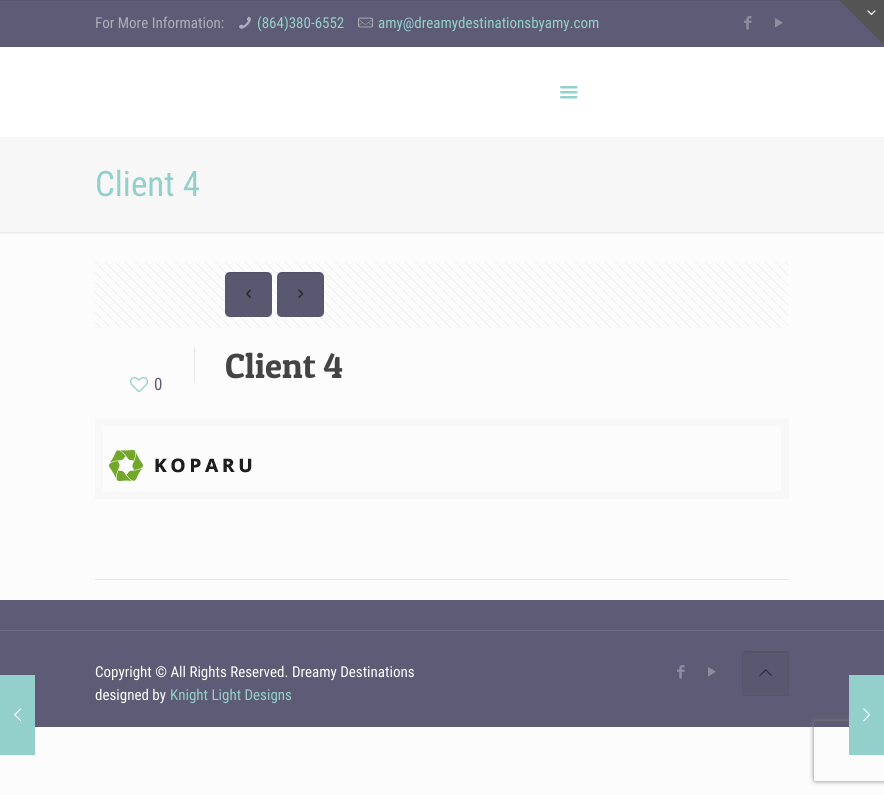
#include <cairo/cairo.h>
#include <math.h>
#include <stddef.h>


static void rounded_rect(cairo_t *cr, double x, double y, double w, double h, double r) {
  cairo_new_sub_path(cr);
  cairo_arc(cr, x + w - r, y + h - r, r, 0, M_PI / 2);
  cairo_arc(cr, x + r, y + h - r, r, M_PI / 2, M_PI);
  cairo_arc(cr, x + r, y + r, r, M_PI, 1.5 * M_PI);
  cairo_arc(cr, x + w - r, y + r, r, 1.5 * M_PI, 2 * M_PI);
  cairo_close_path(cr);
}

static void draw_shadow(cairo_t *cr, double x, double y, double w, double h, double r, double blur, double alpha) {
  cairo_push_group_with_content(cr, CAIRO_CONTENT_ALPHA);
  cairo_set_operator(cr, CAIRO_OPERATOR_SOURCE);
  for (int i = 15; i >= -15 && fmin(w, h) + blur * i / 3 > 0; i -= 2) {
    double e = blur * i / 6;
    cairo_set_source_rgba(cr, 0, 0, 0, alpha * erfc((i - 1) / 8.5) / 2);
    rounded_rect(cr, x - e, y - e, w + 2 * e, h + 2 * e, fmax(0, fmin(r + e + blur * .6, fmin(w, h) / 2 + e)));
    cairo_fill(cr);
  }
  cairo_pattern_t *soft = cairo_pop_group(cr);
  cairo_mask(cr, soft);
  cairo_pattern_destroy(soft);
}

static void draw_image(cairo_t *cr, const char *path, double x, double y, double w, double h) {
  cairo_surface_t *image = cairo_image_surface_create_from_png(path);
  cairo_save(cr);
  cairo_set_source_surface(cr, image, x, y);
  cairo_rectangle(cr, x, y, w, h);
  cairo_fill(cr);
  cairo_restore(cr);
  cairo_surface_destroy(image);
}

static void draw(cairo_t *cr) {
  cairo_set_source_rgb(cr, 252 / 255.0, 252 / 255.0, 252 / 255.0);
  cairo_paint(cr);
  cairo_set_source_rgb(cr, 88 / 255.0, 86 / 255.0, 111 / 255.0);
  cairo_rectangle(cr, 0, 0, 840, 1);
  cairo_fill(cr);
  cairo_set_source_rgb(cr, 94 / 255.0, 91 / 255.0, 118 / 255.0);
  cairo_rectangle(cr, 0, 1, 884, 46);
  cairo_fill(cr);
  cairo_set_source_rgb(cr, 84 / 255.0, 84 / 255.0, 84 / 255.0);
  cairo_new_path(cr);
  cairo_move_to(cr, 884, 0);
  cairo_line_to(cr, 884, 45);
  cairo_line_to(cr, 839, 0);
  cairo_close_path(cr);
  cairo_fill(cr);
  draw_image(cr, "images/1.png", 867, 10, 9, 5);
  cairo_set_source_rgb(cr, 1, 1, 1);
  cairo_rectangle(cr, 0, 47, 884, 90);
  cairo_fill(cr);
  draw_image(cr, "images/2.png", 239, 16, 12, 13);
  draw_image(cr, "images/3.png", 358, 17, 15, 11);
  draw_image(cr, "images/4.png", 744, 16, 8, 14);
  draw_image(cr, "images/5.png", 775, 18, 8, 10);
  draw_image(cr, "images/6.png", 560, 86, 18, 13);
  cairo_set_source_rgb(cr, 247 / 255.0, 247 / 255.0, 247 / 255.0);
  cairo_rectangle(cr, 0, 137, 884, 95);
  cairo_fill(cr);
  draw_image(cr, "images/7.png", 0, 232, 884, 2);
  draw_image(cr, "images/8.png", 95, 262, 694, 66);
  cairo_set_source_rgb(cr, 94 / 255.0, 91 / 255.0, 118 / 255.0);
  rounded_rect(cr, 225, 272, 47, 45, 5);
  cairo_fill(cr);
  draw_image(cr, "images/9.png", 226, 272, 45, 2);
  cairo_rectangle(cr, 225.5, 272.5, 46, 44);
  cairo_set_source_rgba(cr, 0, 0, 0, 0.03);
  cairo_set_line_width(cr, 1);
  cairo_stroke(cr);
  cairo_set_source_rgba(cr, 0, 0, 0, 0.05);
  cairo_rectangle(cr, 225, 272, 47, 45);
  cairo_fill(cr);
  draw_image(cr, "images/10.png", 246, 289, 5, 9);
  cairo_set_source_rgb(cr, 94 / 255.0, 91 / 255.0, 118 / 255.0);
  rounded_rect(cr, 277, 272, 47, 45, 5);
  cairo_fill(cr);
  draw_image(cr, "images/11.png", 278, 272, 45, 2);
  cairo_rectangle(cr, 277.5, 272.5, 46, 44);
  cairo_set_source_rgba(cr, 0, 0, 0, 0.03);
  cairo_stroke(cr);
  cairo_set_source_rgba(cr, 0, 0, 0, 0.05);
  cairo_rectangle(cr, 277, 272, 47, 45);
  cairo_fill(cr);
  draw_image(cr, "images/12.png", 298, 289, 6, 9);
  cairo_set_source_rgb(cr, 232 / 255.0, 232 / 255.0, 232 / 255.0);
  cairo_rectangle(cr, 194, 348, 1, 35);
  cairo_fill(cr);
  draw_image(cr, "images/13.png", 130, 377, 18, 16);
  cairo_rectangle(cr, 99, 422, 686, 73);
  cairo_set_source_rgb(cr, 248 / 255.0, 248 / 255.0, 248 / 255.0);
  cairo_set_line_width(cr, 8);
  cairo_stroke(cr);
  draw_image(cr, "images/14.png", 109, 450, 143, 31);
  cairo_set_source_rgb(cr, 232 / 255.0, 232 / 255.0, 232 / 255.0);
  cairo_rectangle(cr, 95, 579, 694, 1);
  cairo_fill(cr);
  cairo_set_source_rgb(cr, 94 / 255.0, 91 / 255.0, 118 / 255.0);
  cairo_rectangle(cr, 0, 600, 884, 127);
  cairo_fill(cr);
  cairo_set_source_rgb(cr, 110 / 255.0, 107 / 255.0, 132 / 255.0);
  cairo_rectangle(cr, 0, 630, 884, 1);
  cairo_fill(cr);
  draw_image(cr, "images/4.png", 677, 665, 8, 14);
  draw_image(cr, "images/5.png", 708, 667, 8, 10);
  draw_image(cr, "images/15.png", 744, 651, 43, 2);
  cairo_rectangle(cr, 742.5, 651.5, 46, 44);
  cairo_set_source_rgba(cr, 0, 0, 0, 0.03);
  cairo_set_line_width(cr, 1);
  cairo_stroke(cr);
  cairo_set_source_rgba(cr, 0, 0, 0, 0.05);
  cairo_rectangle(cr, 742, 651, 47, 45);
  cairo_fill(cr);
  draw_image(cr, "images/16.png", 759, 669, 13, 8);
  cairo_set_source_rgb(cr, 148 / 255.0, 208 / 255.0, 203 / 255.0);
  cairo_rectangle(cr, 0, 675, 35, 80);
  cairo_fill(cr);
  draw_image(cr, "images/17.png", 14, 708, 8, 14);
  cairo_save(cr);
  cairo_set_fill_rule(cr, CAIRO_FILL_RULE_EVEN_ODD);
  cairo_new_path(cr);
  cairo_move_to(cr, 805, 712);
  cairo_line_to(cr, 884, 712);
  cairo_line_to(cr, 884, 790);
  cairo_line_to(cr, 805, 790);
  cairo_close_path(cr);
  cairo_move_to(cr, 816, 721);
  cairo_line_to(cr, 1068, 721);
  cairo_curve_to(cr, 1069, 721, 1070, 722, 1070, 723);
  cairo_line_to(cr, 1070, 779);
  cairo_curve_to(cr, 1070, 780, 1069, 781, 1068, 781);
  cairo_line_to(cr, 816, 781);
  cairo_curve_to(cr, 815, 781, 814, 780, 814, 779);
  cairo_line_to(cr, 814, 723);
  cairo_curve_to(cr, 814, 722, 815, 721, 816, 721);
  cairo_close_path(cr);
  cairo_clip(cr);
  cairo_set_source_rgb(cr, 128 / 255.0, 128 / 255.0, 128 / 255.0);
  draw_shadow(cr, 814, 721, 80, 60, 2, 2.5, 1);
  cairo_restore(cr);
  cairo_rectangle(cr, 849, 675, 35, 80);
  cairo_fill(cr);
  draw_image(cr, "images/18.png", 863, 708, 8, 14);
  cairo_select_font_face(cr, "Roboto Condensed", CAIRO_FONT_SLANT_NORMAL, CAIRO_FONT_WEIGHT_NORMAL);
  cairo_set_font_size(cr, 15);
  cairo_set_source_rgb(cr, 175 / 255.0, 173 / 255.0, 187 / 255.0);
  cairo_move_to(cr, 95, 28);
  cairo_show_text(cr, "For More Information:");
  cairo_set_source_rgb(cr, 148 / 255.0, 208 / 255.0, 203 / 255.0);
  cairo_move_to(cr, 257, 28);
  cairo_show_text(cr, "(864)380-6552");
  cairo_move_to(cr, 378, 28);
  cairo_show_text(cr, "amy@dreamydestinationsbyamy.com");
  cairo_set_font_size(cr, 35);
  cairo_move_to(cr, 95, 196);
  cairo_show_text(cr, "Client 4");
  cairo_select_font_face(cr, "Patua One", CAIRO_FONT_SLANT_NORMAL, CAIRO_FONT_WEIGHT_NORMAL);
  cairo_set_source_rgb(cr, 68 / 255.0, 68 / 255.0, 68 / 255.0);
  cairo_move_to(cr, 225, 378);
  cairo_show_text(cr, "Client 4");
  cairo_select_font_face(cr, "Roboto Condensed", CAIRO_FONT_SLANT_NORMAL, CAIRO_FONT_WEIGHT_NORMAL);
  cairo_set_font_size(cr, 17);
  cairo_set_source_rgb(cr, 94 / 255.0, 91 / 255.0, 118 / 255.0);
  cairo_move_to(cr, 154, 390);
  cairo_show_text(cr, "0");
  cairo_set_font_size(cr, 15);
  cairo_set_source_rgb(cr, 1, 1, 1);
  cairo_move_to(cr, 95, 677);
  cairo_show_text(cr, "Copyright © All Rights Reserved. Dreamy Destinations");
  cairo_move_to(cr, 95, 700);
  cairo_show_text(cr, "designed by");
  cairo_set_source_rgb(cr, 148 / 255.0, 208 / 255.0, 203 / 255.0);
  cairo_move_to(cr, 170, 700);
  cairo_show_text(cr, "Knight Light Designs");
}

int main(void) {
  cairo_surface_t *surface = cairo_image_surface_create(CAIRO_FORMAT_RGB24, 884, 795);
  cairo_t *cr = cairo_create(surface);
  cairo_font_options_t *options = cairo_font_options_create();
  cairo_font_options_set_hint_metrics(options, CAIRO_HINT_METRICS_OFF);
  cairo_font_options_set_hint_style(options, CAIRO_HINT_STYLE_NONE);
  cairo_set_font_options(cr, options);
  cairo_set_miter_limit(cr, 4);
  draw(cr);
  cairo_surface_write_to_png(surface, "out.png");
  cairo_font_options_destroy(options);
  cairo_destroy(cr);
  cairo_surface_destroy(surface);
  return 0;
}
